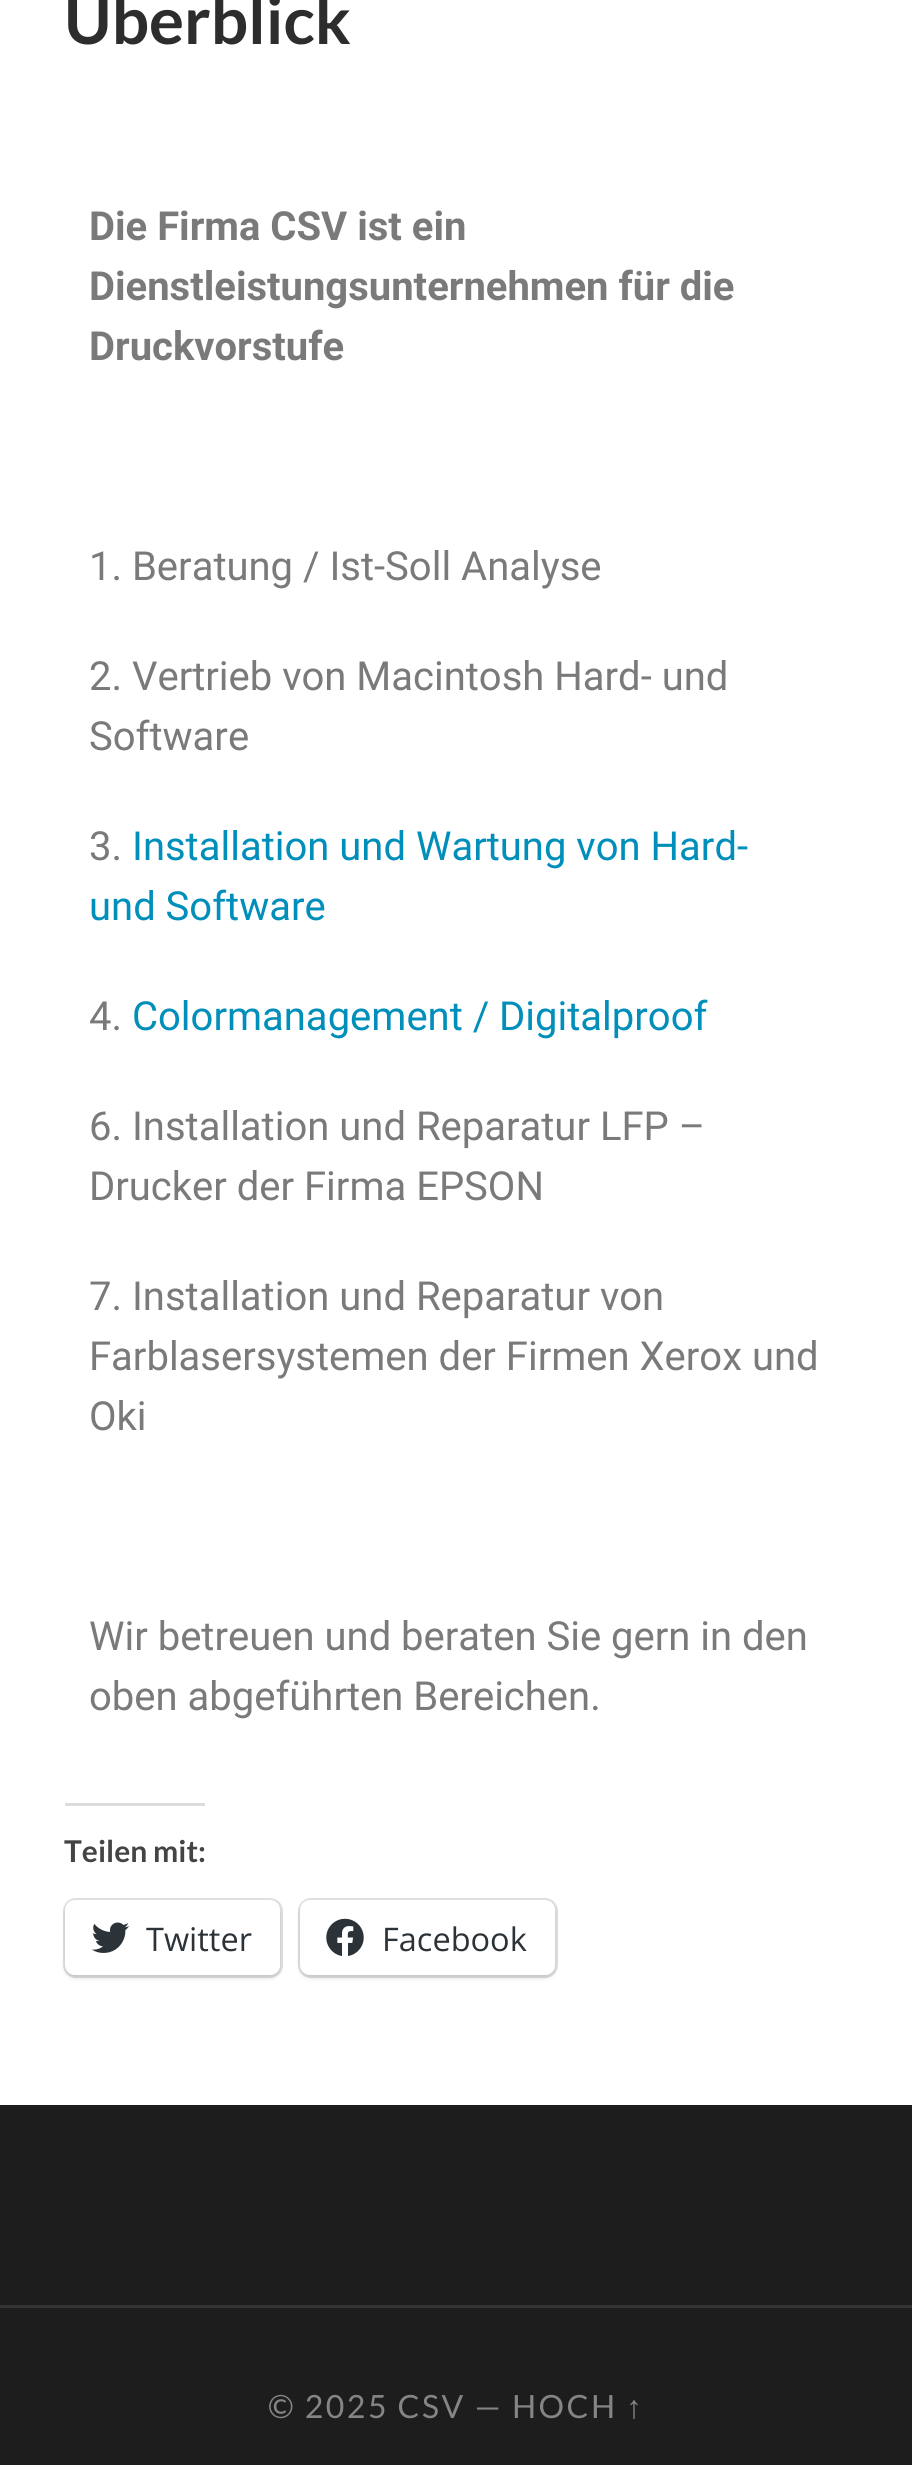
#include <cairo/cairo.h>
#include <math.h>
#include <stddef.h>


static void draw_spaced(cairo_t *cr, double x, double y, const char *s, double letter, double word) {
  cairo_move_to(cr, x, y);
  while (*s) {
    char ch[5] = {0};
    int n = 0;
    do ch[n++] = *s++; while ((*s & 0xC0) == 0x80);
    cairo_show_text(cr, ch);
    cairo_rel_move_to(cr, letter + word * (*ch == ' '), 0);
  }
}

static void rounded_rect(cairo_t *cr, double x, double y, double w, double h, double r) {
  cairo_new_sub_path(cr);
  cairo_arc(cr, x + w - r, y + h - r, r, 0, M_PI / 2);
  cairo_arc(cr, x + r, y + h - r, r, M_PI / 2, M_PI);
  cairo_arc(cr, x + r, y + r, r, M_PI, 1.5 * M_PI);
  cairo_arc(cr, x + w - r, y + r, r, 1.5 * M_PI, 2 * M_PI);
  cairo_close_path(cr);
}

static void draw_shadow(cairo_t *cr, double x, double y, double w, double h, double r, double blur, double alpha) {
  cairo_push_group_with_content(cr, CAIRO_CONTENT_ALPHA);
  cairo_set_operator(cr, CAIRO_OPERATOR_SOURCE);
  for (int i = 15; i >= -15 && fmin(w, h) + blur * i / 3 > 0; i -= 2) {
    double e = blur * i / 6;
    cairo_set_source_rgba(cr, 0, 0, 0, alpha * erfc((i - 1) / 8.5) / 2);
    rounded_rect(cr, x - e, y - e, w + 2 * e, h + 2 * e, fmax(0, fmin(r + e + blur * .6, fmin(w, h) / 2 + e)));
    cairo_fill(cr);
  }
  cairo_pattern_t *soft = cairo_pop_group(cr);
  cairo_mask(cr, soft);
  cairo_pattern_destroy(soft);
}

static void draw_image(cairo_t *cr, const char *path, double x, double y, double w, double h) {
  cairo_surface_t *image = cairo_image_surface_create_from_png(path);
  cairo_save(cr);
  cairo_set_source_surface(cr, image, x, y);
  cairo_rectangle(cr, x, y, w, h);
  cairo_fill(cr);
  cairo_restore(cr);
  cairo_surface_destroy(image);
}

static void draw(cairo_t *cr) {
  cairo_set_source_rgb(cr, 1, 1, 1);
  cairo_paint(cr);
  cairo_set_source_rgb(cr, 220 / 255.0, 220 / 255.0, 222 / 255.0);
  cairo_rectangle(cr, 65, 1803, 140, 3);
  cairo_fill(cr);
  rounded_rect(cr, 64.5, 1899.5, 217, 77, 11.5);
  cairo_set_source_rgb(cr, 224 / 255.0, 224 / 255.0, 224 / 255.0);
  cairo_set_line_width(cr, 3);
  cairo_stroke(cr);
  cairo_set_source_rgb(cr, 0, 0, 0);
  draw_shadow(cr, 65, 1903, 215, 75, 10, 2.5, 0.12);
  cairo_set_source_rgb(cr, 1, 1, 1);
  rounded_rect(cr, 65, 1900, 215, 75, 10);
  cairo_fill(cr);
  draw_image(cr, "images/1.png", 91, 1922, 38, 31);
  rounded_rect(cr, 299.5, 1899.5, 257, 77, 11.5);
  cairo_set_source_rgb(cr, 224 / 255.0, 224 / 255.0, 224 / 255.0);
  cairo_stroke(cr);
  cairo_set_source_rgb(cr, 0, 0, 0);
  draw_shadow(cr, 300, 1903, 255, 75, 10, 2.5, 0.12);
  cairo_set_source_rgb(cr, 1, 1, 1);
  rounded_rect(cr, 300, 1900, 255, 75, 10);
  cairo_fill(cr);
  draw_image(cr, "images/2.png", 326, 1918, 38, 38);
  cairo_set_source_rgb(cr, 29 / 255.0, 29 / 255.0, 29 / 255.0);
  cairo_rectangle(cr, 0, 2105, 912, 200);
  cairo_fill(cr);
  cairo_rectangle(cr, 0, 2308, 912, 157);
  cairo_fill(cr);
  cairo_set_source_rgb(cr, 52 / 255.0, 52 / 255.0, 52 / 255.0);
  cairo_rectangle(cr, 0, 2305, 912, 3);
  cairo_fill(cr);
  cairo_select_font_face(cr, "Lato", CAIRO_FONT_SLANT_NORMAL, CAIRO_FONT_WEIGHT_BOLD);
  cairo_set_font_size(cr, 65.5);
  cairo_set_source_rgb(cr, 45 / 255.0, 45 / 255.0, 45 / 255.0);
  cairo_move_to(cr, 64, 44);
  cairo_show_text(cr, "Überblick");
  cairo_select_font_face(cr, "Roboto", CAIRO_FONT_SLANT_NORMAL, CAIRO_FONT_WEIGHT_BOLD);
  cairo_set_font_size(cr, 40);
  cairo_set_source_rgb(cr, 122 / 255.0, 122 / 255.0, 122 / 255.0);
  cairo_move_to(cr, 89, 240);
  cairo_show_text(cr, "Die Firma CSV ist ein");
  cairo_move_to(cr, 89, 300);
  cairo_show_text(cr, "Dienstleistungsunternehmen für die");
  cairo_move_to(cr, 89, 360);
  cairo_show_text(cr, "Druckvorstufe");
  cairo_select_font_face(cr, "Roboto", CAIRO_FONT_SLANT_NORMAL, CAIRO_FONT_WEIGHT_NORMAL);
  cairo_move_to(cr, 89, 580);
  cairo_show_text(cr, "1. Beratung / Ist-Soll Analyse");
  cairo_move_to(cr, 89, 690);
  cairo_show_text(cr, "2. Vertrieb von Macintosh Hard- und");
  cairo_move_to(cr, 89, 750);
  cairo_show_text(cr, "Software");
  cairo_move_to(cr, 89, 860);
  cairo_show_text(cr, "3.");
  cairo_set_source_rgb(cr, 0, 142 / 255.0, 186 / 255.0);
  cairo_move_to(cr, 132, 860);
  cairo_show_text(cr, "Installation und Wartung von Hard-");
  cairo_move_to(cr, 89, 920);
  cairo_show_text(cr, "und Software");
  cairo_set_source_rgb(cr, 122 / 255.0, 122 / 255.0, 122 / 255.0);
  cairo_move_to(cr, 89, 1030);
  cairo_show_text(cr, "4.");
  cairo_set_source_rgb(cr, 0, 142 / 255.0, 186 / 255.0);
  cairo_move_to(cr, 132, 1030);
  cairo_show_text(cr, "Colormanagement / Digitalproof");
  cairo_set_source_rgb(cr, 122 / 255.0, 122 / 255.0, 122 / 255.0);
  cairo_move_to(cr, 89, 1140);
  cairo_show_text(cr, "6. Installation und Reparatur LFP –");
  cairo_move_to(cr, 89, 1200);
  cairo_show_text(cr, "Drucker der Firma EPSON");
  cairo_move_to(cr, 89, 1310);
  cairo_show_text(cr, "7. Installation und Reparatur von");
  cairo_move_to(cr, 89, 1370);
  cairo_show_text(cr, "Farblasersystemen der Firmen Xerox und");
  cairo_move_to(cr, 89, 1430);
  cairo_show_text(cr, "Oki");
  cairo_move_to(cr, 89, 1650);
  cairo_show_text(cr, "Wir betreuen und beraten Sie gern in den");
  cairo_move_to(cr, 89, 1710);
  cairo_show_text(cr, "oben abgeführten Bereichen.");
  cairo_select_font_face(cr, "Lato", CAIRO_FONT_SLANT_NORMAL, CAIRO_FONT_WEIGHT_BOLD);
  cairo_set_font_size(cr, 30);
  cairo_set_source_rgb(cr, 68 / 255.0, 68 / 255.0, 68 / 255.0);
  cairo_move_to(cr, 64, 1862);
  cairo_show_text(cr, "Teilen mit:");
  cairo_select_font_face(cr, "Open Sans", CAIRO_FONT_SLANT_NORMAL, CAIRO_FONT_WEIGHT_NORMAL);
  cairo_set_font_size(cr, 32.5);
  cairo_set_source_rgb(cr, 44 / 255.0, 51 / 255.0, 56 / 255.0);
  cairo_move_to(cr, 146, 1951);
  cairo_show_text(cr, "Twitter");
  cairo_move_to(cr, 382, 1951);
  cairo_show_text(cr, "Facebook");
  cairo_select_font_face(cr, "Lato", CAIRO_FONT_SLANT_NORMAL, CAIRO_FONT_WEIGHT_NORMAL);
  cairo_set_font_size(cr, 32);
  cairo_set_source_rgb(cr, 133 / 255.0, 133 / 255.0, 133 / 255.0);
  draw_spaced(cr, 268, 2418, "© 2025 CSV — HOCH", 2.5, 0);
  cairo_select_font_face(cr, "Liberation Sans", CAIRO_FONT_SLANT_NORMAL, CAIRO_FONT_WEIGHT_NORMAL);
  draw_spaced(cr, 626, 2418, "↑", 2.5, 0);
}

int main(void) {
  cairo_surface_t *surface = cairo_image_surface_create(CAIRO_FORMAT_RGB24, 912, 2465);
  cairo_t *cr = cairo_create(surface);
  cairo_font_options_t *options = cairo_font_options_create();
  cairo_font_options_set_hint_metrics(options, CAIRO_HINT_METRICS_OFF);
  cairo_font_options_set_hint_style(options, CAIRO_HINT_STYLE_NONE);
  cairo_set_font_options(cr, options);
  cairo_set_miter_limit(cr, 4);
  draw(cr);
  cairo_surface_write_to_png(surface, "out.png");
  cairo_font_options_destroy(options);
  cairo_destroy(cr);
  cairo_surface_destroy(surface);
  return 0;
}
